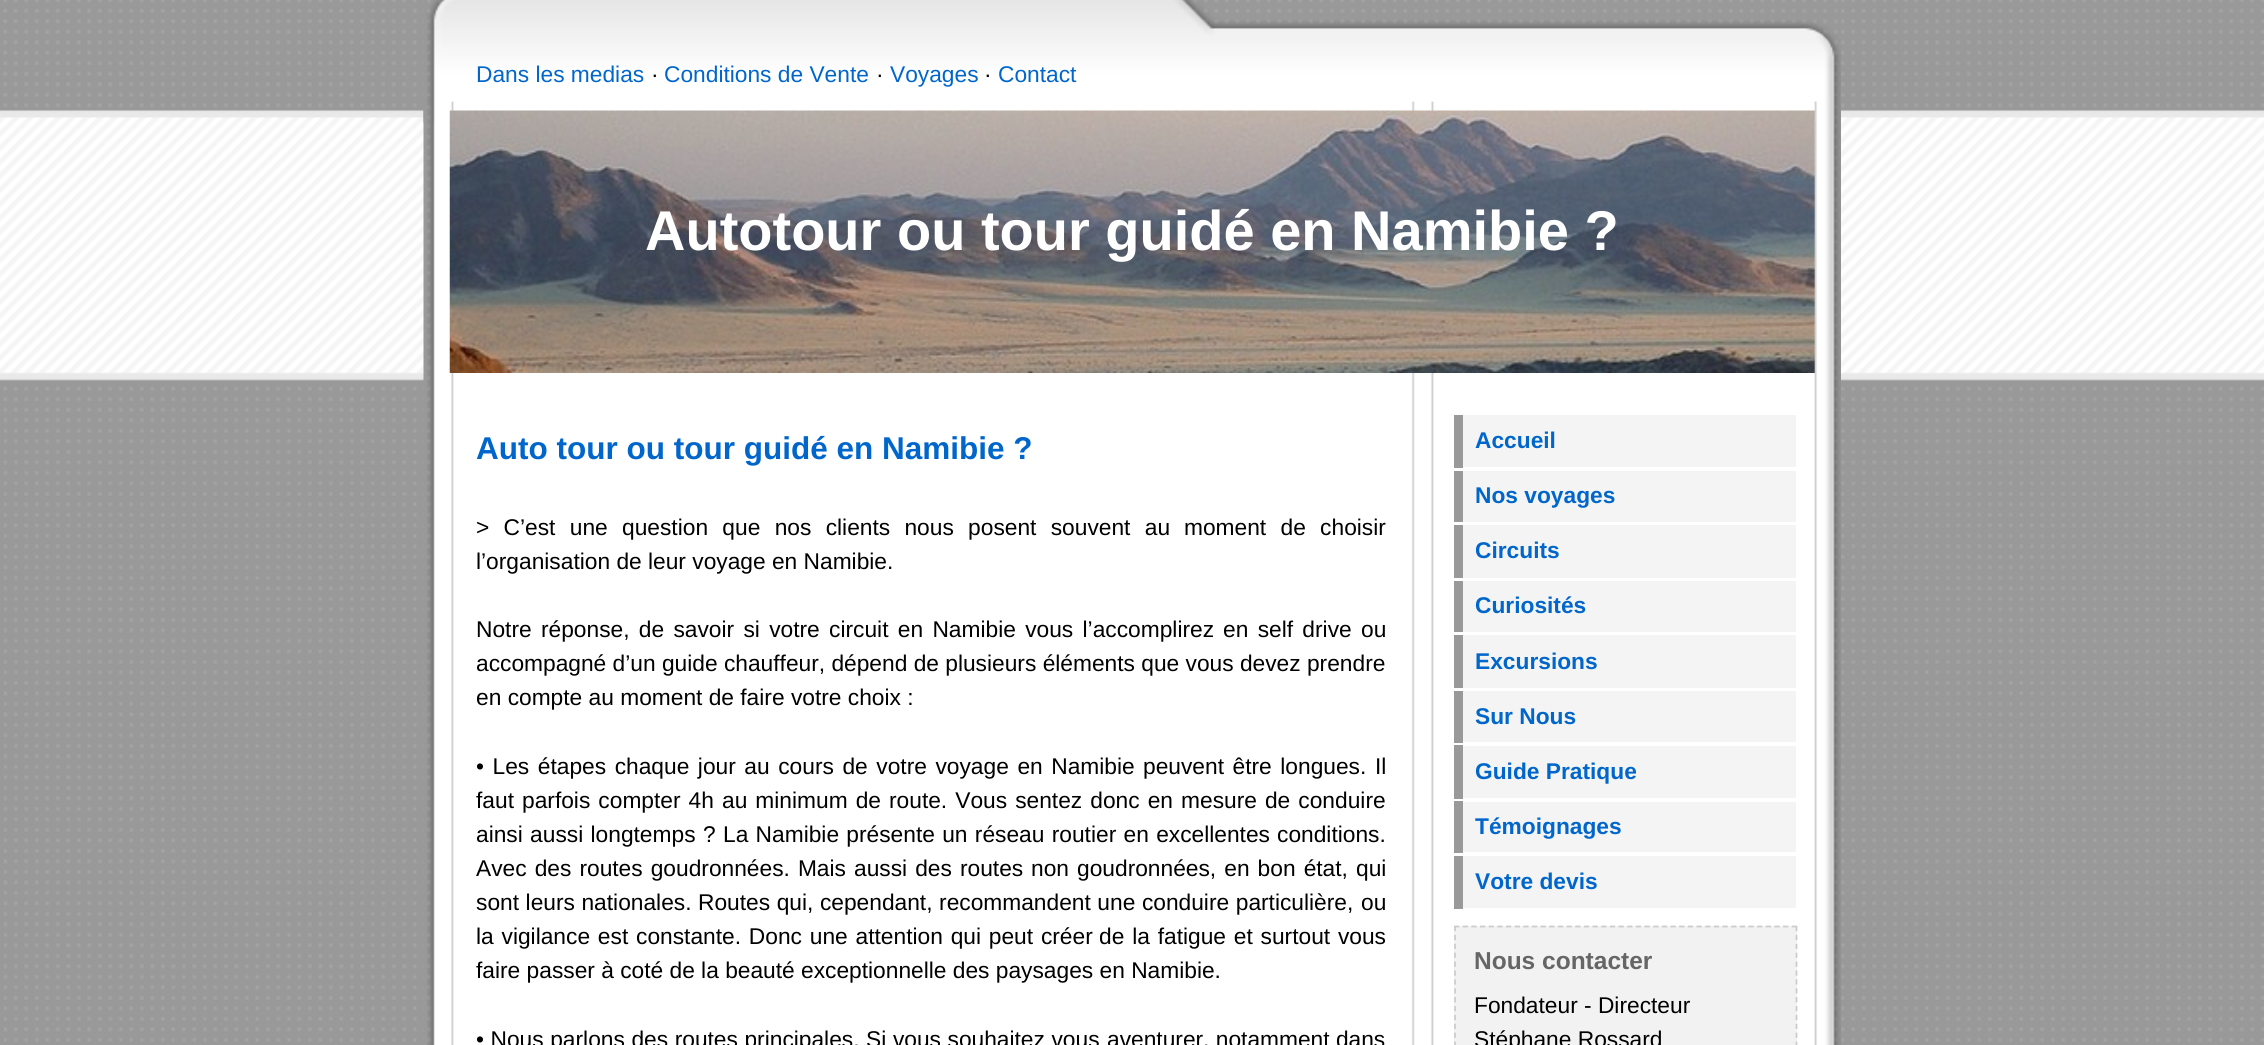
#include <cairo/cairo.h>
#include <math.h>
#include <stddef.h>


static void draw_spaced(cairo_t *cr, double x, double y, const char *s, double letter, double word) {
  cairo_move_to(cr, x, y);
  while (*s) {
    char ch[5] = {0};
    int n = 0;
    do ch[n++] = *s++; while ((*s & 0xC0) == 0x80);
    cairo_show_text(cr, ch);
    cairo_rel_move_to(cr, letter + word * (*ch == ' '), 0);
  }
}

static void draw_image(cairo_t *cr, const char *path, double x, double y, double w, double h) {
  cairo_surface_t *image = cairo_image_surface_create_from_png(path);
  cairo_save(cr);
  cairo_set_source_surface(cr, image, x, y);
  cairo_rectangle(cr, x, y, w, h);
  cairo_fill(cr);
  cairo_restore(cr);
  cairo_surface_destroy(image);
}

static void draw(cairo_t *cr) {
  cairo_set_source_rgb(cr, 153 / 255.0, 153 / 255.0, 153 / 255.0);
  cairo_paint(cr);
  draw_image(cr, "images/1.png", 4, 411, 2260, 631);
  draw_image(cr, "images/2.png", 0, 0, 2264, 411);
  draw_image(cr, "images/3.png", 423, 0, 1418, 1045);
  draw_image(cr, "images/4.png", 427, 0, 1414, 102);
  draw_image(cr, "images/5.png", 423, 101, 1414, 22);
  draw_image(cr, "images/6.png", 449, 110, 1366, 263);
  cairo_set_source_rgb(cr, 244 / 255.0, 244 / 255.0, 244 / 255.0);
  cairo_rectangle(cr, 1463, 415, 333, 52);
  cairo_fill(cr);
  cairo_set_source_rgb(cr, 153 / 255.0, 153 / 255.0, 153 / 255.0);
  cairo_rectangle(cr, 1454, 415, 9, 53);
  cairo_fill(cr);
  cairo_set_source_rgb(cr, 244 / 255.0, 244 / 255.0, 244 / 255.0);
  cairo_rectangle(cr, 1463, 471, 333, 51);
  cairo_fill(cr);
  cairo_set_source_rgb(cr, 153 / 255.0, 153 / 255.0, 153 / 255.0);
  cairo_rectangle(cr, 1454, 471, 9, 51);
  cairo_fill(cr);
  cairo_set_source_rgb(cr, 244 / 255.0, 244 / 255.0, 244 / 255.0);
  cairo_rectangle(cr, 1463, 525, 333, 53);
  cairo_fill(cr);
  cairo_set_source_rgb(cr, 153 / 255.0, 153 / 255.0, 153 / 255.0);
  cairo_rectangle(cr, 1454, 525, 9, 53);
  cairo_fill(cr);
  cairo_set_source_rgb(cr, 244 / 255.0, 244 / 255.0, 244 / 255.0);
  cairo_rectangle(cr, 1463, 581, 333, 51);
  cairo_fill(cr);
  cairo_set_source_rgb(cr, 153 / 255.0, 153 / 255.0, 153 / 255.0);
  cairo_rectangle(cr, 1454, 581, 9, 51);
  cairo_fill(cr);
  cairo_set_source_rgb(cr, 244 / 255.0, 244 / 255.0, 244 / 255.0);
  cairo_rectangle(cr, 1463, 635, 333, 53);
  cairo_fill(cr);
  cairo_set_source_rgb(cr, 153 / 255.0, 153 / 255.0, 153 / 255.0);
  cairo_rectangle(cr, 1454, 635, 9, 53);
  cairo_fill(cr);
  cairo_set_source_rgb(cr, 244 / 255.0, 244 / 255.0, 244 / 255.0);
  cairo_rectangle(cr, 1463, 691, 333, 51);
  cairo_fill(cr);
  cairo_set_source_rgb(cr, 153 / 255.0, 153 / 255.0, 153 / 255.0);
  cairo_rectangle(cr, 1454, 691, 9, 52);
  cairo_fill(cr);
  cairo_set_source_rgb(cr, 244 / 255.0, 244 / 255.0, 244 / 255.0);
  cairo_rectangle(cr, 1463, 746, 333, 52);
  cairo_fill(cr);
  cairo_set_source_rgb(cr, 153 / 255.0, 153 / 255.0, 153 / 255.0);
  cairo_rectangle(cr, 1454, 745, 9, 54);
  cairo_fill(cr);
  cairo_set_source_rgb(cr, 244 / 255.0, 244 / 255.0, 244 / 255.0);
  cairo_rectangle(cr, 1463, 802, 333, 50);
  cairo_fill(cr);
  cairo_set_source_rgb(cr, 153 / 255.0, 153 / 255.0, 153 / 255.0);
  cairo_rectangle(cr, 1454, 801, 9, 52);
  cairo_fill(cr);
  cairo_set_source_rgb(cr, 244 / 255.0, 244 / 255.0, 244 / 255.0);
  cairo_rectangle(cr, 1463, 856, 333, 52);
  cairo_fill(cr);
  cairo_set_source_rgb(cr, 153 / 255.0, 153 / 255.0, 153 / 255.0);
  cairo_rectangle(cr, 1454, 856, 9, 53);
  cairo_fill(cr);
  cairo_set_source_rgb(cr, 242 / 255.0, 242 / 255.0, 242 / 255.0);
  cairo_rectangle(cr, 1454, 926, 343, 119);
  cairo_fill(cr);
  cairo_new_path(cr);
  cairo_move_to(cr, 1454, 926.5);
  cairo_line_to(cr, 1797, 926.5);
  cairo_set_source_rgb(cr, 204 / 255.0, 204 / 255.0, 204 / 255.0);
  cairo_set_line_width(cr, 1.8);
  cairo_set_dash(cr, (double[]){5.25, 3.41}, 2, 0);
  cairo_stroke(cr);
  cairo_new_path(cr);
  cairo_move_to(cr, 1796.5, 926);
  cairo_line_to(cr, 1796.5, 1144.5);
  cairo_set_dash(cr, (double[]){5.25, 3.64}, 2, 0);
  cairo_stroke(cr);
  cairo_new_path(cr);
  cairo_move_to(cr, 1455, 926);
  cairo_line_to(cr, 1455, 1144.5);
  cairo_stroke(cr);
  cairo_select_font_face(cr, "Liberation Sans", CAIRO_FONT_SLANT_NORMAL, CAIRO_FONT_WEIGHT_NORMAL);
  cairo_set_font_size(cr, 22.75);
  cairo_set_source_rgb(cr, 0, 102 / 255.0, 204 / 255.0);
  cairo_move_to(cr, 476, 82);
  cairo_show_text(cr, "Dans les medias");
  cairo_set_source_rgb(cr, 0, 0, 0);
  cairo_move_to(cr, 651, 82);
  cairo_show_text(cr, "·");
  cairo_set_source_rgb(cr, 0, 102 / 255.0, 204 / 255.0);
  cairo_move_to(cr, 664, 82);
  cairo_show_text(cr, "Conditions de Vente");
  cairo_set_source_rgb(cr, 0, 0, 0);
  cairo_move_to(cr, 876, 82);
  cairo_show_text(cr, "·");
  cairo_set_source_rgb(cr, 0, 102 / 255.0, 204 / 255.0);
  cairo_move_to(cr, 890, 82);
  cairo_show_text(cr, "Voyages");
  cairo_set_source_rgb(cr, 0, 0, 0);
  cairo_move_to(cr, 984, 82);
  cairo_show_text(cr, "·");
  cairo_set_source_rgb(cr, 0, 102 / 255.0, 204 / 255.0);
  cairo_move_to(cr, 998, 82);
  cairo_show_text(cr, "Contact");
  cairo_select_font_face(cr, "Liberation Sans", CAIRO_FONT_SLANT_NORMAL, CAIRO_FONT_WEIGHT_BOLD);
  cairo_set_font_size(cr, 56);
  cairo_set_source_rgb(cr, 1, 1, 1);
  cairo_move_to(cr, 645, 250);
  cairo_show_text(cr, "Autotour ou tour guidé en Namibie ?");
  cairo_set_font_size(cr, 31.5);
  cairo_set_source_rgb(cr, 0, 102 / 255.0, 204 / 255.0);
  cairo_move_to(cr, 476, 459);
  cairo_show_text(cr, "Auto tour ou tour guidé en Namibie ?");
  cairo_select_font_face(cr, "Liberation Sans", CAIRO_FONT_SLANT_NORMAL, CAIRO_FONT_WEIGHT_NORMAL);
  cairo_set_font_size(cr, 22.75);
  cairo_set_source_rgb(cr, 0, 0, 0);
  draw_spaced(cr, 476, 535, "> C’est une question que nos clients nous posent souvent au", 0, 8);
  draw_spaced(cr, 1184, 535, "moment de choisir", 0, 8);
  cairo_move_to(cr, 476, 569);
  cairo_show_text(cr, "l’organisation de leur voyage en Namibie.");
  draw_spaced(cr, 476, 637, "Notre réponse, de savoir si votre circuit en Namibie vous l’accomplirez", 0, 3);
  draw_spaced(cr, 1223, 637, "en self drive ou", 0, 3);
  cairo_move_to(cr, 476, 671);
  cairo_show_text(cr, "accompagné d’un guide chauffeur, dépend de plusieurs éléments que vous devez prendre");
  cairo_move_to(cr, 476, 705);
  cairo_show_text(cr, "en compte au moment de faire votre choix :");
  draw_spaced(cr, 476, 774, "• Les étapes chaque jour au cours de votre voyage en Namibie", 0, 2.25);
  draw_spaced(cr, 1143, 774, "peuvent être longues. Il", 0, 2.25);
  draw_spaced(cr, 476, 808, "faut parfois compter 4h au minimum de", 0, 1.75);
  draw_spaced(cr, 889, 808, "route. Vous sentez donc en mesure de conduire", 0, 1.75);
  draw_spaced(cr, 476, 842, "ainsi aussi longtemps", 0, 1);
  draw_spaced(cr, 703, 842, "? La Namibie présente un réseau routier en excellentes", 0, 1);
  cairo_move_to(cr, 1277, 842);
  cairo_show_text(cr, "conditions.");
  draw_spaced(cr, 476, 876, "Avec des routes goudronnées. Mais aussi des routes", 0, 1.75);
  draw_spaced(cr, 1031, 876, "non goudronnées, en bon état, qui", 0, 1.75);
  draw_spaced(cr, 476, 910, "sont leurs nationales.", 0, 0.25);
  draw_spaced(cr, 698, 910, "Routes qui, cependant, recommandent une conduire particulière,", 0, 0.25);
  cairo_move_to(cr, 1361, 910);
  cairo_show_text(cr, "ou");
  draw_spaced(cr, 476, 944, "la vigilance est constante. Donc une attention qui peut créer", 0, 1.5);
  draw_spaced(cr, 1099, 944, "de la fatigue et surtout vous", 0, 1.5);
  cairo_move_to(cr, 476, 978);
  cairo_show_text(cr, "faire passer à coté de la beauté exceptionnelle des paysages en Namibie.");
  draw_spaced(cr, 476, 1047, "• Nous parlons des routes principales. Si vous souhaitez vous", 0, 0.25);
  cairo_move_to(cr, 1107, 1047);
  cairo_show_text(cr, "aventurer, notamment dans");
  cairo_select_font_face(cr, "Liberation Sans", CAIRO_FONT_SLANT_NORMAL, CAIRO_FONT_WEIGHT_BOLD);
  cairo_set_source_rgb(cr, 0, 102 / 255.0, 204 / 255.0);
  cairo_move_to(cr, 1475, 448);
  cairo_show_text(cr, "Accueil");
  cairo_move_to(cr, 1475, 503);
  cairo_show_text(cr, "Nos voyages");
  cairo_move_to(cr, 1475, 558);
  cairo_show_text(cr, "Circuits");
  cairo_move_to(cr, 1475, 613);
  cairo_show_text(cr, "Curiosités");
  cairo_move_to(cr, 1475, 669);
  cairo_show_text(cr, "Excursions");
  cairo_move_to(cr, 1475, 724);
  cairo_show_text(cr, "Sur Nous");
  cairo_move_to(cr, 1475, 779);
  cairo_show_text(cr, "Guide Pratique");
  cairo_move_to(cr, 1475, 834);
  cairo_show_text(cr, "Témoignages");
  cairo_move_to(cr, 1475, 889);
  cairo_show_text(cr, "Votre devis");
  cairo_set_font_size(cr, 24.5);
  cairo_set_source_rgb(cr, 102 / 255.0, 102 / 255.0, 102 / 255.0);
  cairo_move_to(cr, 1474, 969);
  cairo_show_text(cr, "Nous contacter");
  cairo_select_font_face(cr, "Liberation Sans", CAIRO_FONT_SLANT_NORMAL, CAIRO_FONT_WEIGHT_NORMAL);
  cairo_set_font_size(cr, 22.75);
  cairo_set_source_rgb(cr, 0, 0, 0);
  cairo_move_to(cr, 1474, 1013);
  cairo_show_text(cr, "Fondateur - Directeur");
  cairo_move_to(cr, 1474, 1047);
  cairo_show_text(cr, "Stéphane Rossard");
}

int main(void) {
  cairo_surface_t *surface = cairo_image_surface_create(CAIRO_FORMAT_RGB24, 2264, 1045);
  cairo_t *cr = cairo_create(surface);
  cairo_font_options_t *options = cairo_font_options_create();
  cairo_font_options_set_hint_metrics(options, CAIRO_HINT_METRICS_OFF);
  cairo_font_options_set_hint_style(options, CAIRO_HINT_STYLE_NONE);
  cairo_set_font_options(cr, options);
  cairo_set_miter_limit(cr, 4);
  draw(cr);
  cairo_surface_write_to_png(surface, "out.png");
  cairo_font_options_destroy(options);
  cairo_destroy(cr);
  cairo_surface_destroy(surface);
  return 0;
}
